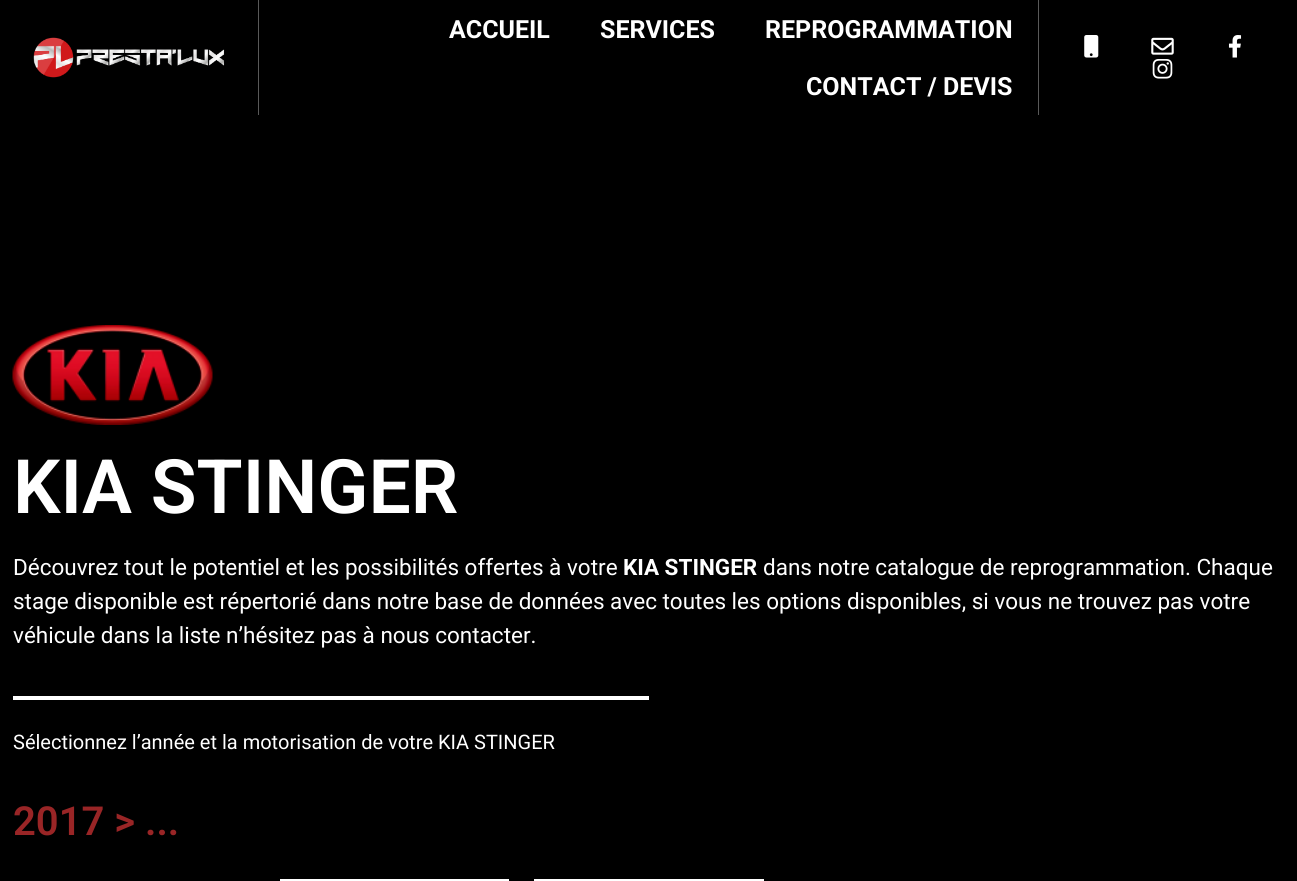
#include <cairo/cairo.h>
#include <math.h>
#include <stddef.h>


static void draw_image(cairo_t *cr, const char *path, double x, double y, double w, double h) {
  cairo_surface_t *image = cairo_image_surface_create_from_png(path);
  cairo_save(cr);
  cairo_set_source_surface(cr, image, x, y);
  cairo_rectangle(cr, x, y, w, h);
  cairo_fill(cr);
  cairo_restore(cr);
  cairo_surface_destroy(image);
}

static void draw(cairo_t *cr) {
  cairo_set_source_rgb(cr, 0, 0, 0);
  cairo_paint(cr);
  cairo_set_source_rgb(cr, 89 / 255.0, 89 / 255.0, 89 / 255.0);
  cairo_rectangle(cr, 258, 0, 1, 115);
  cairo_fill(cr);
  draw_image(cr, "images/1.png", 33, 37, 192, 41);
  cairo_rectangle(cr, 1038, 0, 1, 115);
  cairo_fill(cr);
  draw_image(cr, "images/2.png", 1084, 35, 15, 23);
  draw_image(cr, "images/3.png", 1151, 37, 23, 18);
  draw_image(cr, "images/4.png", 1228, 35, 14, 23);
  draw_image(cr, "images/5.png", 1152, 59, 21, 20);
  draw_image(cr, "images/6.png", 12, 325, 201, 100);
  cairo_set_source_rgb(cr, 1, 1, 1);
  cairo_rectangle(cr, 13, 696, 636, 4);
  cairo_fill(cr);
  cairo_rectangle(cr, 280, 879, 229, 2);
  cairo_fill(cr);
  cairo_rectangle(cr, 534, 879, 230, 2);
  cairo_fill(cr);
  cairo_select_font_face(cr, "Roboto", CAIRO_FONT_SLANT_NORMAL, CAIRO_FONT_WEIGHT_BOLD);
  cairo_set_font_size(cr, 25);
  cairo_move_to(cr, 449, 38);
  cairo_show_text(cr, "ACCUEIL");
  cairo_move_to(cr, 600, 38);
  cairo_show_text(cr, "SERVICES");
  cairo_move_to(cr, 765, 38);
  cairo_show_text(cr, "REPROGRAMMATION");
  cairo_move_to(cr, 806, 95);
  cairo_show_text(cr, "CONTACT / DEVIS");
  cairo_select_font_face(cr, "Roboto SemiBold", CAIRO_FONT_SLANT_NORMAL, CAIRO_FONT_WEIGHT_NORMAL);
  cairo_set_font_size(cr, 75);
  cairo_move_to(cr, 13, 513);
  cairo_show_text(cr, "KIA STINGER");
  cairo_select_font_face(cr, "Roboto", CAIRO_FONT_SLANT_NORMAL, CAIRO_FONT_WEIGHT_NORMAL);
  cairo_set_font_size(cr, 22.5);
  cairo_move_to(cr, 13, 575);
  cairo_show_text(cr, "Découvrez tout le potentiel et les possibilités offertes à votre");
  cairo_select_font_face(cr, "Roboto", CAIRO_FONT_SLANT_NORMAL, CAIRO_FONT_WEIGHT_BOLD);
  cairo_move_to(cr, 623, 575);
  cairo_show_text(cr, "KIA STINGER");
  cairo_select_font_face(cr, "Roboto", CAIRO_FONT_SLANT_NORMAL, CAIRO_FONT_WEIGHT_NORMAL);
  cairo_move_to(cr, 763, 575);
  cairo_show_text(cr, "dans notre catalogue de reprogrammation. Chaque");
  cairo_move_to(cr, 13, 609);
  cairo_show_text(cr, "stage disponible est répertorié dans notre base de données avec toutes les options disponibles, si vous ne trouvez pas votre");
  cairo_move_to(cr, 13, 643);
  cairo_show_text(cr, "véhicule dans la liste n’hésitez pas à nous contacter.");
  cairo_set_font_size(cr, 20);
  cairo_move_to(cr, 13, 749);
  cairo_show_text(cr, "Sélectionnez l’année et la motorisation de votre KIA STINGER");
  cairo_select_font_face(cr, "Roboto SemiBold", CAIRO_FONT_SLANT_NORMAL, CAIRO_FONT_WEIGHT_NORMAL);
  cairo_set_font_size(cr, 40);
  cairo_set_source_rgb(cr, 153 / 255.0, 37 / 255.0, 38 / 255.0);
  cairo_move_to(cr, 13, 835);
  cairo_show_text(cr, "2017 > ...");
}

int main(void) {
  cairo_surface_t *surface = cairo_image_surface_create(CAIRO_FORMAT_RGB24, 1297, 881);
  cairo_t *cr = cairo_create(surface);
  cairo_font_options_t *options = cairo_font_options_create();
  cairo_font_options_set_hint_metrics(options, CAIRO_HINT_METRICS_OFF);
  cairo_font_options_set_hint_style(options, CAIRO_HINT_STYLE_NONE);
  cairo_set_font_options(cr, options);
  cairo_set_miter_limit(cr, 4);
  draw(cr);
  cairo_surface_write_to_png(surface, "out.png");
  cairo_font_options_destroy(options);
  cairo_destroy(cr);
  cairo_surface_destroy(surface);
  return 0;
}
